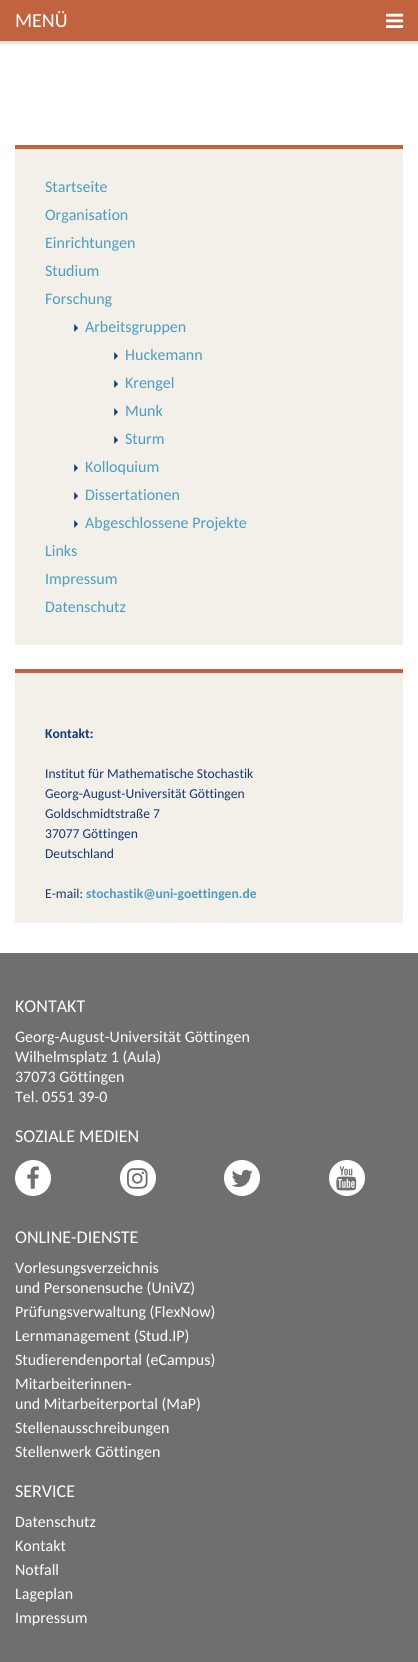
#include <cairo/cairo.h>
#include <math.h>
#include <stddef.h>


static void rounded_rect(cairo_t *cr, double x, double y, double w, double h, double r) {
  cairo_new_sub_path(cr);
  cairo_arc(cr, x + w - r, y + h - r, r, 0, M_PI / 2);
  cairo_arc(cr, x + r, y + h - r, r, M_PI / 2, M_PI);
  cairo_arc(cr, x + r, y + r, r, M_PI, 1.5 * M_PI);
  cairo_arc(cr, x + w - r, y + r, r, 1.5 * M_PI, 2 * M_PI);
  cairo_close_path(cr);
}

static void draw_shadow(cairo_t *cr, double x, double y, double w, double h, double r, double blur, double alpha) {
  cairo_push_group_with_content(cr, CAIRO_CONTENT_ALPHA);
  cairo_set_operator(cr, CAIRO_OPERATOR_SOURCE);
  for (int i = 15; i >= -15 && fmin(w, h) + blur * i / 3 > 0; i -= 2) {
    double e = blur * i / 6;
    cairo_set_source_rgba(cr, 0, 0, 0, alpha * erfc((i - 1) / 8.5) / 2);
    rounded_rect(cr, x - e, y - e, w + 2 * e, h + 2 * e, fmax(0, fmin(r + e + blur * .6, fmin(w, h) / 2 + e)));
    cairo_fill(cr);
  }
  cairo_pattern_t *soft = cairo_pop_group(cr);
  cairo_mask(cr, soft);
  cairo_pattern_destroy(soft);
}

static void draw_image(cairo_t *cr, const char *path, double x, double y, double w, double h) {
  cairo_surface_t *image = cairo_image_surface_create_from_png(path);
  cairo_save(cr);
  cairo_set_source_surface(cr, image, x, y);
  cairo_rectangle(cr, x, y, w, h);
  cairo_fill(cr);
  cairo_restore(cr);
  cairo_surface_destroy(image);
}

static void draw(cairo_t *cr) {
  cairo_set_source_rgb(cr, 111 / 255.0, 111 / 255.0, 110 / 255.0);
  cairo_paint(cr);
  cairo_set_source_rgb(cr, 1, 1, 1);
  cairo_rectangle(cr, 0, 41, 418, 912);
  cairo_fill(cr);
  cairo_set_source_rgb(cr, 0, 0, 0);
  draw_shadow(cr, 0, 2, 418, 41, 0, 2, 0.2);
  cairo_set_source_rgb(cr, 193 / 255.0, 99 / 255.0, 62 / 255.0);
  cairo_rectangle(cr, 0, 0, 418, 41);
  cairo_fill(cr);
  draw_image(cr, "images/1.png", 386, 13, 18, 15);
  cairo_set_source_rgb(cr, 242 / 255.0, 240 / 255.0, 232 / 255.0);
  cairo_rectangle(cr, 15, 149, 388, 496);
  cairo_fill(cr);
  cairo_set_source_rgb(cr, 193 / 255.0, 99 / 255.0, 62 / 255.0);
  cairo_rectangle(cr, 15, 145, 388, 4);
  cairo_fill(cr);
  draw_image(cr, "images/2.png", 74, 324, 4, 8);
  draw_image(cr, "images/2.png", 114, 352, 4, 8);
  draw_image(cr, "images/2.png", 114, 380, 4, 8);
  draw_image(cr, "images/2.png", 114, 408, 4, 8);
  draw_image(cr, "images/2.png", 114, 436, 4, 8);
  draw_image(cr, "images/2.png", 74, 464, 4, 8);
  draw_image(cr, "images/2.png", 74, 492, 4, 8);
  draw_image(cr, "images/2.png", 74, 520, 4, 8);
  cairo_set_source_rgb(cr, 242 / 255.0, 240 / 255.0, 232 / 255.0);
  cairo_rectangle(cr, 15, 673, 388, 250);
  cairo_fill(cr);
  cairo_set_source_rgb(cr, 193 / 255.0, 99 / 255.0, 62 / 255.0);
  cairo_rectangle(cr, 15, 669, 388, 4);
  cairo_fill(cr);
  cairo_set_source_rgb(cr, 1, 1, 1);
  cairo_arc(cr, 33, 1178, 18, 0, 2 * M_PI);
  cairo_fill(cr);
  draw_image(cr, "images/3.png", 27, 1166, 12, 23);
  cairo_arc(cr, 138, 1178, 18, 0, 2 * M_PI);
  cairo_fill(cr);
  draw_image(cr, "images/4.png", 127, 1168, 21, 21);
  cairo_arc(cr, 242, 1178, 18, 0, 2 * M_PI);
  cairo_fill(cr);
  draw_image(cr, "images/5.png", 231, 1169, 22, 18);
  cairo_arc(cr, 347, 1178, 18, 0, 2 * M_PI);
  cairo_fill(cr);
  draw_image(cr, "images/6.png", 336, 1166, 21, 25);
  cairo_select_font_face(cr, "Carlito", CAIRO_FONT_SLANT_NORMAL, CAIRO_FONT_WEIGHT_NORMAL);
  cairo_set_font_size(cr, 20);
  cairo_move_to(cr, 15, 27);
  cairo_show_text(cr, "MENÜ");
  cairo_set_font_size(cr, 16);
  cairo_set_source_rgb(cr, 77 / 255.0, 156 / 255.0, 194 / 255.0);
  cairo_move_to(cr, 45, 192);
  cairo_show_text(cr, "Startseite");
  cairo_move_to(cr, 45, 220);
  cairo_show_text(cr, "Organisation");
  cairo_move_to(cr, 45, 248);
  cairo_show_text(cr, "Einrichtungen");
  cairo_move_to(cr, 45, 276);
  cairo_show_text(cr, "Studium");
  cairo_move_to(cr, 45, 304);
  cairo_show_text(cr, "Forschung");
  cairo_move_to(cr, 85, 332);
  cairo_show_text(cr, "Arbeitsgruppen");
  cairo_move_to(cr, 125, 360);
  cairo_show_text(cr, "Huckemann");
  cairo_move_to(cr, 125, 388);
  cairo_show_text(cr, "Krengel");
  cairo_move_to(cr, 125, 416);
  cairo_show_text(cr, "Munk");
  cairo_move_to(cr, 125, 444);
  cairo_show_text(cr, "Sturm");
  cairo_move_to(cr, 85, 472);
  cairo_show_text(cr, "Kolloquium");
  cairo_move_to(cr, 85, 500);
  cairo_show_text(cr, "Dissertationen");
  cairo_move_to(cr, 85, 528);
  cairo_show_text(cr, "Abgeschlossene Projekte");
  cairo_move_to(cr, 45, 556);
  cairo_show_text(cr, "Links");
  cairo_move_to(cr, 45, 584);
  cairo_show_text(cr, "Impressum");
  cairo_move_to(cr, 45, 612);
  cairo_show_text(cr, "Datenschutz");
  cairo_select_font_face(cr, "Carlito", CAIRO_FONT_SLANT_NORMAL, CAIRO_FONT_WEIGHT_BOLD);
  cairo_set_font_size(cr, 13.6);
  cairo_set_source_rgb(cr, 22 / 255.0, 55 / 255.0, 118 / 255.0);
  cairo_move_to(cr, 45, 738);
  cairo_show_text(cr, "Kontakt:");
  cairo_select_font_face(cr, "Carlito", CAIRO_FONT_SLANT_NORMAL, CAIRO_FONT_WEIGHT_NORMAL);
  cairo_move_to(cr, 45, 778);
  cairo_show_text(cr, "Institut für Mathematische Stochastik");
  cairo_move_to(cr, 45, 798);
  cairo_show_text(cr, "Georg-August-Universität Göttingen");
  cairo_move_to(cr, 45, 818);
  cairo_show_text(cr, "Goldschmidtstraße 7");
  cairo_move_to(cr, 45, 838);
  cairo_show_text(cr, "37077 Göttingen");
  cairo_move_to(cr, 45, 858);
  cairo_show_text(cr, "Deutschland");
  cairo_move_to(cr, 45, 898);
  cairo_show_text(cr, "E-mail:");
  cairo_select_font_face(cr, "Carlito", CAIRO_FONT_SLANT_NORMAL, CAIRO_FONT_WEIGHT_BOLD);
  cairo_set_source_rgb(cr, 77 / 255.0, 156 / 255.0, 194 / 255.0);
  cairo_move_to(cr, 86, 898);
  cairo_show_text(cr, "stochastik@uni-goettingen.de");
  cairo_select_font_face(cr, "Carlito", CAIRO_FONT_SLANT_NORMAL, CAIRO_FONT_WEIGHT_NORMAL);
  cairo_set_font_size(cr, 18);
  cairo_set_source_rgb(cr, 1, 1, 1);
  cairo_move_to(cr, 15, 1012);
  cairo_show_text(cr, "KONTAKT");
  cairo_set_font_size(cr, 16);
  cairo_move_to(cr, 15, 1042);
  cairo_show_text(cr, "Georg-August-Universität Göttingen");
  cairo_move_to(cr, 15, 1062);
  cairo_show_text(cr, "Wilhelmsplatz 1 (Aula)");
  cairo_move_to(cr, 15, 1082);
  cairo_show_text(cr, "37073 Göttingen");
  cairo_move_to(cr, 15, 1102);
  cairo_show_text(cr, "Tel. 0551 39-0");
  cairo_set_font_size(cr, 18);
  cairo_move_to(cr, 15, 1142);
  cairo_show_text(cr, "SOZIALE MEDIEN");
  cairo_move_to(cr, 15, 1243);
  cairo_show_text(cr, "ONLINE-DIENSTE");
  cairo_set_font_size(cr, 16);
  cairo_move_to(cr, 15, 1273);
  cairo_show_text(cr, "Vorlesungsverzeichnis");
  cairo_move_to(cr, 15, 1293);
  cairo_show_text(cr, "und Personensuche (UniVZ)");
  cairo_move_to(cr, 15, 1317);
  cairo_show_text(cr, "Prüfungsverwaltung (FlexNow)");
  cairo_move_to(cr, 15, 1341);
  cairo_show_text(cr, "Lernmanagement (Stud.IP)");
  cairo_move_to(cr, 15, 1365);
  cairo_show_text(cr, "Studierendenportal (eCampus)");
  cairo_move_to(cr, 15, 1389);
  cairo_show_text(cr, "Mitarbeiterinnen-");
  cairo_move_to(cr, 15, 1409);
  cairo_show_text(cr, "und Mitarbeiterportal (MaP)");
  cairo_move_to(cr, 15, 1433);
  cairo_show_text(cr, "Stellenausschreibungen");
  cairo_move_to(cr, 15, 1457);
  cairo_show_text(cr, "Stellenwerk Göttingen");
  cairo_set_font_size(cr, 18);
  cairo_move_to(cr, 15, 1497);
  cairo_show_text(cr, "SERVICE");
  cairo_set_font_size(cr, 16);
  cairo_move_to(cr, 15, 1527);
  cairo_show_text(cr, "Datenschutz");
  cairo_move_to(cr, 15, 1551);
  cairo_show_text(cr, "Kontakt");
  cairo_move_to(cr, 15, 1575);
  cairo_show_text(cr, "Notfall");
  cairo_move_to(cr, 15, 1599);
  cairo_show_text(cr, "Lageplan");
  cairo_move_to(cr, 15, 1623);
  cairo_show_text(cr, "Impressum");
}

int main(void) {
  cairo_surface_t *surface = cairo_image_surface_create(CAIRO_FORMAT_RGB24, 418, 1662);
  cairo_t *cr = cairo_create(surface);
  cairo_font_options_t *options = cairo_font_options_create();
  cairo_font_options_set_hint_metrics(options, CAIRO_HINT_METRICS_OFF);
  cairo_font_options_set_hint_style(options, CAIRO_HINT_STYLE_NONE);
  cairo_set_font_options(cr, options);
  cairo_set_miter_limit(cr, 4);
  draw(cr);
  cairo_surface_write_to_png(surface, "out.png");
  cairo_font_options_destroy(options);
  cairo_destroy(cr);
  cairo_surface_destroy(surface);
  return 0;
}
